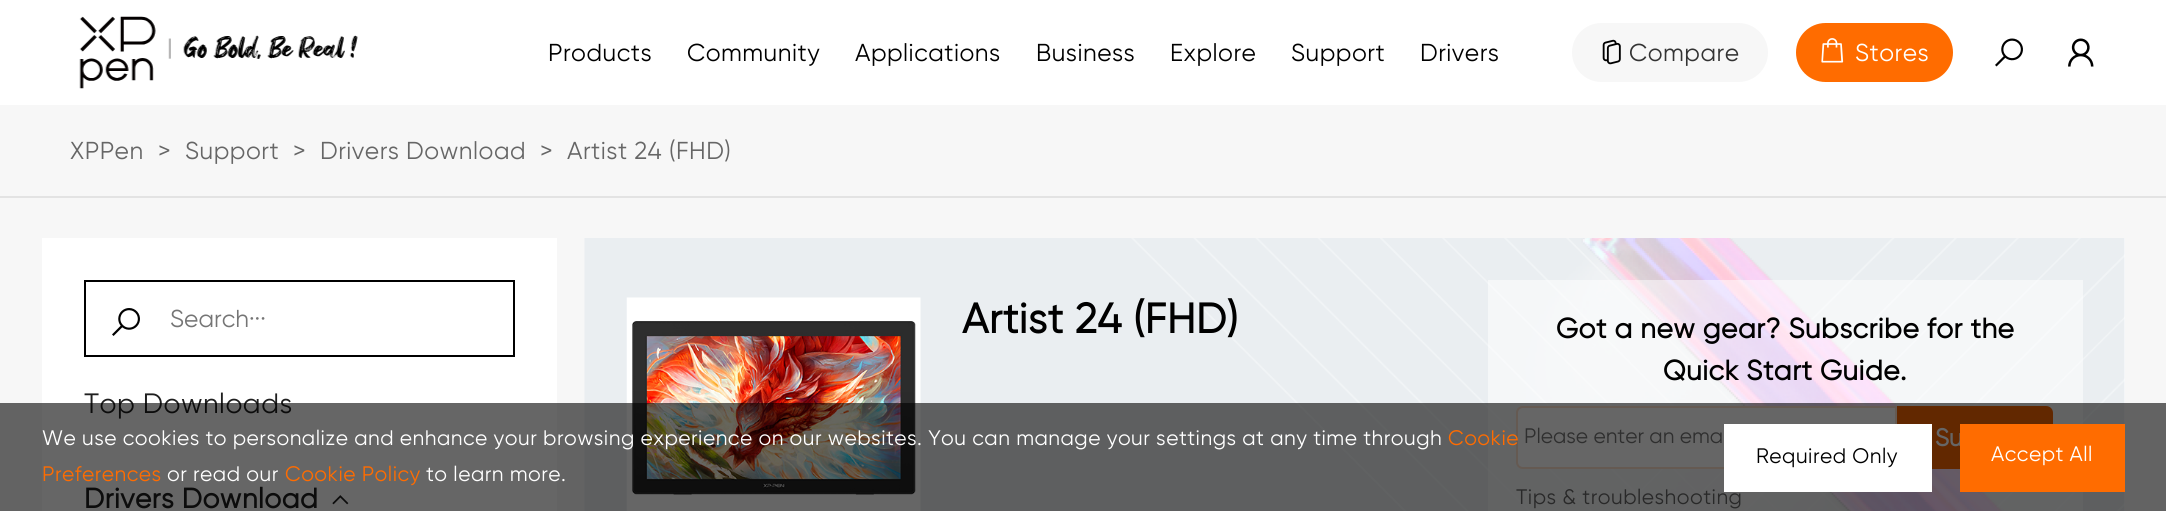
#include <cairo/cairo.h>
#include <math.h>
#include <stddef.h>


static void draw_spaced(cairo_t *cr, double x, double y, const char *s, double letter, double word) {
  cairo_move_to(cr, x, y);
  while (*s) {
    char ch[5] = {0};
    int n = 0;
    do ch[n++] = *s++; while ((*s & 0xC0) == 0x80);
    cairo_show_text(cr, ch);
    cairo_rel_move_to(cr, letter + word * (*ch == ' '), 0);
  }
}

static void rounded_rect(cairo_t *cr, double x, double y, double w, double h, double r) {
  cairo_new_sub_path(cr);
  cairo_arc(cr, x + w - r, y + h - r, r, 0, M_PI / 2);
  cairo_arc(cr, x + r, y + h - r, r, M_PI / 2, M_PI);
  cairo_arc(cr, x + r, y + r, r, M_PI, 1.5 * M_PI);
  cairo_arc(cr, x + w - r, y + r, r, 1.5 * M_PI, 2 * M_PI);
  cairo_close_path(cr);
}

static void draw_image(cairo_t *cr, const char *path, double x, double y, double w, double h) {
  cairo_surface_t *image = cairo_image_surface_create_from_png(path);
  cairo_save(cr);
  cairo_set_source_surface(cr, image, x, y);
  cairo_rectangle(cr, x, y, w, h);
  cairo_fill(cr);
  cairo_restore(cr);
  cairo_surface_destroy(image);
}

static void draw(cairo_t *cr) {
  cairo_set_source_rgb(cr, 1, 1, 1);
  cairo_paint(cr);
  cairo_set_source_rgb(cr, 227 / 255.0, 227 / 255.0, 227 / 255.0);
  cairo_new_path(cr);
  cairo_move_to(cr, 0, 196);
  cairo_line_to(cr, 0, 198);
  cairo_line_to(cr, 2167, 198);
  cairo_line_to(cr, 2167, 2);
  cairo_line_to(cr, 2166, 2);
  cairo_line_to(cr, 2166, 196);
  cairo_close_path(cr);
  cairo_fill(cr);
  draw_image(cr, "images/1.png", 79, 16, 279, 73);
  cairo_set_source_rgb(cr, 247 / 255.0, 247 / 255.0, 247 / 255.0);
  rounded_rect(cr, 1572, 23, 196, 59, 29.5);
  cairo_fill(cr);
  draw_image(cr, "images/2.png", 1602, 39, 19, 26);
  cairo_set_source_rgb(cr, 1, 108 / 255.0, 0);
  rounded_rect(cr, 1796, 23, 157, 59, 29.5);
  cairo_fill(cr);
  draw_image(cr, "images/3.png", 1821, 38, 23, 25);
  draw_image(cr, "images/4.png", 1995, 38, 28, 29);
  draw_image(cr, "images/5.png", 2068, 38, 26, 29);
  cairo_set_source_rgb(cr, 247 / 255.0, 247 / 255.0, 247 / 255.0);
  cairo_rectangle(cr, 0, 105, 2166, 91);
  cairo_fill(cr);
  cairo_rectangle(cr, 0, 198, 2166, 313);
  cairo_fill(cr);
  cairo_set_source_rgb(cr, 1, 1, 1);
  cairo_rectangle(cr, 42, 238, 515, 273);
  cairo_fill(cr);
  cairo_rectangle(cr, 85, 281, 429, 75);
  cairo_set_source_rgb(cr, 0, 0, 0);
  cairo_stroke(cr);
  draw_image(cr, "images/6.png", 112, 308, 28, 28);
  draw_image(cr, "images/7.png", 332, 495, 17, 10);
  cairo_set_source_rgb(cr, 1, 1, 1);
  cairo_rectangle(cr, 2124, 238, 1, 273);
  cairo_fill(cr);
  draw_image(cr, "images/8.png", 584, 238, 1541, 273);
  draw_image(cr, "images/9.png", 626, 297, 295, 214);
  cairo_set_source_rgba(cr, 1, 1, 1, 0.5);
  cairo_rectangle(cr, 1488, 280, 595, 231);
  cairo_fill(cr);
  cairo_set_source_rgb(cr, 1, 1, 1);
  cairo_new_path(cr);
  cairo_move_to(cr, 1523, 406);
  cairo_line_to(cr, 1897, 406);
  cairo_line_to(cr, 1897, 469);
  cairo_line_to(cr, 1523, 469);
  cairo_curve_to(cr, 1519, 469, 1516, 466, 1516, 462);
  cairo_line_to(cr, 1516, 413);
  cairo_curve_to(cr, 1516, 409, 1519, 406, 1523, 406);
  cairo_close_path(cr);
  cairo_fill(cr);
  cairo_new_path(cr);
  cairo_move_to(cr, 1523, 407);
  cairo_line_to(cr, 1896, 407);
  cairo_line_to(cr, 1896, 468);
  cairo_line_to(cr, 1523, 468);
  cairo_curve_to(cr, 1519.5, 468, 1517, 465.5, 1517, 462);
  cairo_line_to(cr, 1517, 413);
  cairo_curve_to(cr, 1517, 409.5, 1519.5, 407, 1523, 407);
  cairo_close_path(cr);
  cairo_set_source_rgba(cr, 244 / 255.0, 100 / 255.0, 1 / 255.0, 0.2);
  cairo_stroke(cr);
  cairo_set_source_rgb(cr, 244 / 255.0, 100 / 255.0, 1 / 255.0);
  cairo_new_path(cr);
  cairo_move_to(cr, 1897, 406);
  cairo_line_to(cr, 2046, 406);
  cairo_curve_to(cr, 2050, 406, 2053, 409, 2053, 413);
  cairo_line_to(cr, 2053, 462);
  cairo_curve_to(cr, 2053, 466, 2050, 469, 2046, 469);
  cairo_line_to(cr, 1897, 469);
  cairo_close_path(cr);
  cairo_fill(cr);
  cairo_select_font_face(cr, "Gilroy", CAIRO_FONT_SLANT_NORMAL, CAIRO_FONT_WEIGHT_NORMAL);
  cairo_set_font_size(cr, 24.5);
  cairo_set_source_rgb(cr, 0, 0, 0);
  draw_spaced(cr, 548, 61, "Products", 0.49, 0);
  draw_spaced(cr, 687, 61, "Community", 0.49, 0);
  draw_spaced(cr, 855, 61, "Applications", 0.49, 0);
  draw_spaced(cr, 1036, 61, "Business", 0.49, 0);
  draw_spaced(cr, 1170, 61, "Explore", 0.49, 0);
  draw_spaced(cr, 1291, 61, "Support", 0.49, 0);
  draw_spaced(cr, 1420, 61, "Drivers", 0.49, 0);
  cairo_set_source_rgb(cr, 51 / 255.0, 51 / 255.0, 51 / 255.0);
  draw_spaced(cr, 1629, 61, "Compare", 0.49, 0);
  cairo_set_source_rgb(cr, 1, 1, 1);
  draw_spaced(cr, 1855, 61, "Stores", 0.49, 0);
  cairo_set_source_rgb(cr, 102 / 255.0, 102 / 255.0, 102 / 255.0);
  draw_spaced(cr, 70, 159, "XPPen", 0.49, 0);
  draw_spaced(cr, 158, 159, ">", 0.49, 0);
  draw_spaced(cr, 185, 159, "Support", 0.49, 0);
  draw_spaced(cr, 293, 159, ">", 0.49, 0);
  draw_spaced(cr, 320, 159, "Drivers Download", 0.49, 0);
  draw_spaced(cr, 540, 159, ">", 0.49, 0);
  draw_spaced(cr, 567, 159, "Artist 24 (FHD)", 0.49, 0);
  cairo_set_source_rgb(cr, 117 / 255.0, 117 / 255.0, 117 / 255.0);
  cairo_move_to(cr, 170, 327);
  cairo_show_text(cr, "Search···");
  cairo_set_font_size(cr, 28);
  cairo_set_source_rgb(cr, 31 / 255.0, 31 / 255.0, 31 / 255.0);
  draw_spaced(cr, 84, 413, "Top Downloads", 0.49, 0);
  cairo_select_font_face(cr, "Gilroy", CAIRO_FONT_SLANT_NORMAL, CAIRO_FONT_WEIGHT_BOLD);
  draw_spaced(cr, 84, 508, "Drivers Download", 0.49, 0);
  cairo_set_font_size(cr, 42);
  cairo_set_source_rgb(cr, 0, 0, 0);
  draw_spaced(cr, 962, 333, "Artist 24 (FHD)", 0.49, 0);
  cairo_set_font_size(cr, 28);
  draw_spaced(cr, 1556, 338, "Got a new gear? Subscribe for the", 0.49, 0);
  draw_spaced(cr, 1663, 380, "Quick Start Guide.", 0.49, 0);
  cairo_select_font_face(cr, "Gilroy", CAIRO_FONT_SLANT_NORMAL, CAIRO_FONT_WEIGHT_NORMAL);
  cairo_set_font_size(cr, 21);
  cairo_set_source_rgb(cr, 117 / 255.0, 117 / 255.0, 117 / 255.0);
  cairo_move_to(cr, 1524, 443);
  cairo_show_text(cr, "Please enter an ema");
  cairo_select_font_face(cr, "Gilroy", CAIRO_FONT_SLANT_NORMAL, CAIRO_FONT_WEIGHT_BOLD);
  cairo_set_font_size(cr, 24.5);
  cairo_set_source_rgb(cr, 1, 1, 1);
  cairo_move_to(cr, 1935, 446);
  cairo_show_text(cr, "Su");
  cairo_select_font_face(cr, "Gilroy", CAIRO_FONT_SLANT_NORMAL, CAIRO_FONT_WEIGHT_NORMAL);
  cairo_set_font_size(cr, 21);
  cairo_set_source_rgb(cr, 102 / 255.0, 102 / 255.0, 102 / 255.0);
  draw_spaced(cr, 1516, 504, "Tips & troubleshooting", 0.49, 0);
  cairo_set_source_rgba(cr, 0, 0, 0, 0.6);
  cairo_rectangle(cr, 0, 403, 2166, 108);
  cairo_fill(cr);
  cairo_set_source_rgb(cr, 1, 1, 1);
  draw_spaced(cr, 42, 445, "We use cookies to personalize and enhance your browsing experience on our websites. You can manage your settings at any time through", 0.49, 0);
  cairo_set_source_rgb(cr, 1, 108 / 255.0, 0);
  draw_spaced(cr, 1448, 445, "Cookie", 0.49, 0);
  draw_spaced(cr, 42, 481, "Preferences", 0.49, 0);
  cairo_set_source_rgb(cr, 1, 1, 1);
  draw_spaced(cr, 167, 481, "or read our", 0.49, 0);
  cairo_set_source_rgb(cr, 1, 108 / 255.0, 0);
  draw_spaced(cr, 285, 481, "Cookie Policy", 0.49, 0);
  cairo_set_source_rgb(cr, 1, 1, 1);
  draw_spaced(cr, 426, 481, "to learn more.", 0.49, 0);
  cairo_rectangle(cr, 1724, 424, 208, 68);
  cairo_fill(cr);
  cairo_set_source_rgb(cr, 0, 0, 0);
  draw_spaced(cr, 1756, 463, "Required Only", 0.49, 0);
  cairo_set_source_rgb(cr, 1, 108 / 255.0, 0);
  cairo_rectangle(cr, 1960, 424, 165, 68);
  cairo_fill(cr);
  cairo_set_source_rgb(cr, 1, 1, 1);
  draw_spaced(cr, 1991, 461, "Accept All", 0.49, 0);
}

int main(void) {
  cairo_surface_t *surface = cairo_image_surface_create(CAIRO_FORMAT_RGB24, 2166, 511);
  cairo_t *cr = cairo_create(surface);
  cairo_font_options_t *options = cairo_font_options_create();
  cairo_font_options_set_hint_metrics(options, CAIRO_HINT_METRICS_OFF);
  cairo_font_options_set_hint_style(options, CAIRO_HINT_STYLE_NONE);
  cairo_set_font_options(cr, options);
  cairo_set_miter_limit(cr, 4);
  draw(cr);
  cairo_surface_write_to_png(surface, "out.png");
  cairo_font_options_destroy(options);
  cairo_destroy(cr);
  cairo_surface_destroy(surface);
  return 0;
}
